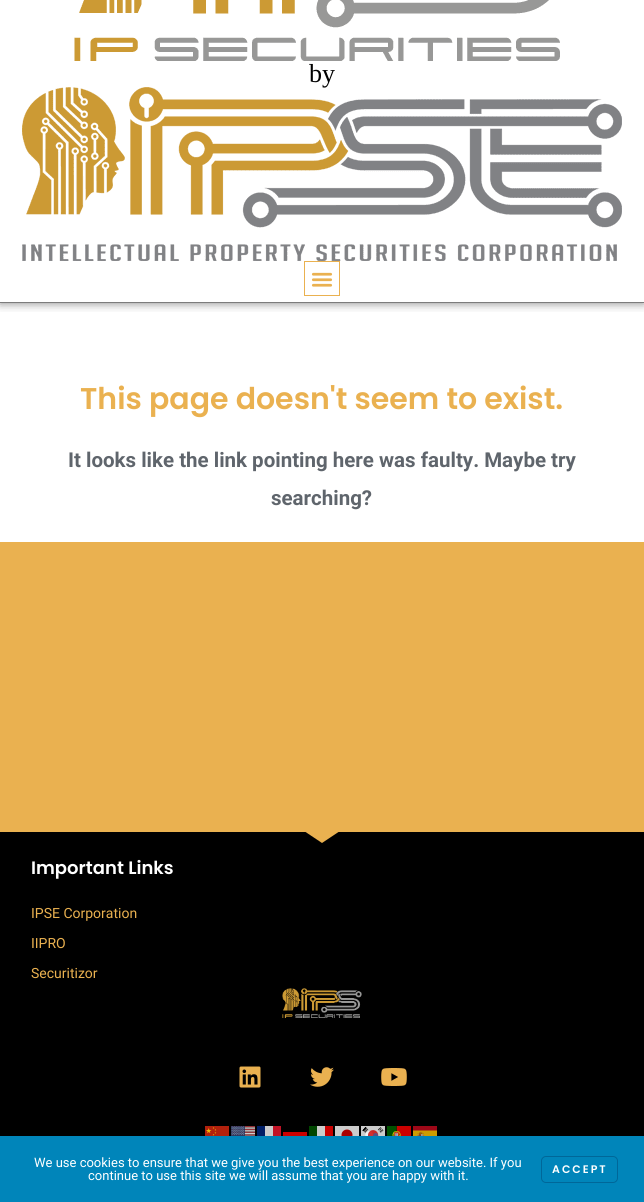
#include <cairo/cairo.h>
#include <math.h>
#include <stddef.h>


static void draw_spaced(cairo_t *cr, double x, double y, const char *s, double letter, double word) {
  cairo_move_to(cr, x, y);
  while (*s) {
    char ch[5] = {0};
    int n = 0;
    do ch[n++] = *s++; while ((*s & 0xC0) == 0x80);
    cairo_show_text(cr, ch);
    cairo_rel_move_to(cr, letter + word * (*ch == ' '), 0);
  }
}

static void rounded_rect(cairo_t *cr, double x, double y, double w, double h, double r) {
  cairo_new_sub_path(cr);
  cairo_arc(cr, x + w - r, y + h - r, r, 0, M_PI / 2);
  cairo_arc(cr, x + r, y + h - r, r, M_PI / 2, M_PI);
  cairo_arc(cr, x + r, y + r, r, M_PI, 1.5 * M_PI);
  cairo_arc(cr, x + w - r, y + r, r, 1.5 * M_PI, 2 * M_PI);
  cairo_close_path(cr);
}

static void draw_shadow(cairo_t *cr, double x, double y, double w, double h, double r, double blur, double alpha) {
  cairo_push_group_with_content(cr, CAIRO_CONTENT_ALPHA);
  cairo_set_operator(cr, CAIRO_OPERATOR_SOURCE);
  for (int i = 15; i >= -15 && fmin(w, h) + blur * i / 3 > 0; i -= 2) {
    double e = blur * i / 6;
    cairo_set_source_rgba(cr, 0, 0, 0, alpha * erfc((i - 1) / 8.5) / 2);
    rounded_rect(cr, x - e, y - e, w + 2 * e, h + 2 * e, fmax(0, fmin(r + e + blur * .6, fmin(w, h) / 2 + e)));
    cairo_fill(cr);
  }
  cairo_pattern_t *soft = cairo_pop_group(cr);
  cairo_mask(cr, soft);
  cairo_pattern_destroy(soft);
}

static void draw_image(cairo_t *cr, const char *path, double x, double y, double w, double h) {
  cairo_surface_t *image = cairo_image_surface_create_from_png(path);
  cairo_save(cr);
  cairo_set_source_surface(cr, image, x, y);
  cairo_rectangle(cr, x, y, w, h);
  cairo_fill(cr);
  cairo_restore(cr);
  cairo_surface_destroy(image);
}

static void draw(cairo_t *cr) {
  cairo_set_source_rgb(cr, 1, 1, 1);
  cairo_paint(cr);
  cairo_save(cr);
  cairo_rectangle(cr, 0, 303, 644, 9);
  cairo_clip(cr);
  cairo_set_source_rgb(cr, 0, 0, 0);
  draw_shadow(cr, 0, -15, 644, 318, 0, 5, 0.5);
  cairo_restore(cr);
  cairo_set_source_rgb(cr, 124 / 255.0, 124 / 255.0, 124 / 255.0);
  cairo_rectangle(cr, 0, 302, 644, 1);
  cairo_fill(cr);
  draw_image(cr, "images/1.png", 74, 0, 486, 61);
  cairo_rectangle(cr, 304.5, 261.5, 35, 34);
  cairo_set_source_rgb(cr, 234 / 255.0, 177 / 255.0, 80 / 255.0);
  cairo_set_line_width(cr, 1);
  cairo_stroke(cr);
  draw_image(cr, "images/3.png", 311, 272, 22, 15);
  cairo_rectangle(cr, 0, 542, 644, 290);
  cairo_fill(cr);
  cairo_set_source_rgb(cr, 0, 0, 0);
  cairo_rectangle(cr, 0, 832, 644, 304);
  cairo_fill(cr);
  cairo_set_source_rgb(cr, 234 / 255.0, 177 / 255.0, 80 / 255.0);
  cairo_new_path(cr);
  cairo_move_to(cr, 322, 843);
  cairo_line_to(cr, 304, 831);
  cairo_line_to(cr, 340, 831);
  cairo_close_path(cr);
  cairo_fill(cr);
  draw_image(cr, "images/4.png", 282, 988, 80, 30);
  draw_image(cr, "images/5.png", 239, 1066, 22, 22);
  draw_image(cr, "images/6.png", 310, 1067, 24, 20);
  draw_image(cr, "images/7.png", 381, 1068, 26, 18);
  draw_image(cr, "images/8.png", 205, 1126, 24, 10);
  draw_image(cr, "images/9.png", 231, 1126, 24, 10);
  cairo_set_source_rgb(cr, 0, 30 / 255.0, 102 / 255.0);
  cairo_rectangle(cr, 257, 1126, 8, 18);
  cairo_fill(cr);
  cairo_set_source_rgb(cr, 204 / 255.0, 204 / 255.0, 204 / 255.0);
  cairo_rectangle(cr, 265, 1126, 8, 10);
  cairo_fill(cr);
  cairo_set_source_rgb(cr, 194 / 255.0, 19 / 255.0, 38 / 255.0);
  cairo_rectangle(cr, 273, 1126, 8, 18);
  cairo_fill(cr);
  cairo_set_source_rgb(cr, 0, 70 / 255.0, 0);
  cairo_rectangle(cr, 309, 1126, 8, 18);
  cairo_fill(cr);
  cairo_set_source_rgb(cr, 204 / 255.0, 204 / 255.0, 204 / 255.0);
  cairo_rectangle(cr, 317, 1126, 8, 10);
  cairo_fill(cr);
  cairo_set_source_rgb(cr, 202 / 255.0, 0, 0);
  cairo_rectangle(cr, 325, 1126, 8, 18);
  cairo_fill(cr);
  cairo_set_source_rgb(cr, 204 / 255.0, 204 / 255.0, 204 / 255.0);
  cairo_rectangle(cr, 335, 1126, 24, 10);
  cairo_fill(cr);
  draw_image(cr, "images/10.png", 361, 1126, 24, 10);
  draw_image(cr, "images/11.png", 387, 1126, 24, 10);
  draw_image(cr, "images/12.png", 413, 1126, 24, 10);
  cairo_set_source_rgb(cr, 204 / 255.0, 0, 0);
  cairo_rectangle(cr, 283, 1132, 24, 4);
  cairo_fill(cr);
  cairo_set_source_rgb(cr, 169 / 255.0, 0, 0);
  cairo_arc(cr, 347, 1135, 5.5, 0, 2 * M_PI);
  cairo_fill(cr);
  cairo_set_source_rgb(cr, 0, 133 / 255.0, 186 / 255.0);
  cairo_rectangle(cr, 0, 1136, 644, 66);
  cairo_fill(cr);
  rounded_rect(cr, 541.5, 1156.5, 76, 26, 4.5);
  cairo_set_source_rgb(cr, 0, 103 / 255.0, 153 / 255.0);
  cairo_stroke(cr);
  cairo_select_font_face(cr, "Liberation Serif", CAIRO_FONT_SLANT_NORMAL, CAIRO_FONT_WEIGHT_NORMAL);
  cairo_set_font_size(cr, 26);
  cairo_set_source_rgb(cr, 0, 0, 0);
  cairo_move_to(cr, 309, 82);
  cairo_show_text(cr, "by");
  draw_image(cr, "images/2.png", 22, 87, 600, 174);
  cairo_select_font_face(cr, "Poppins SemiBold", CAIRO_FONT_SLANT_NORMAL, CAIRO_FONT_WEIGHT_NORMAL);
  cairo_set_font_size(cr, 30);
  cairo_set_source_rgb(cr, 234 / 255.0, 177 / 255.0, 80 / 255.0);
  cairo_move_to(cr, 80, 409);
  cairo_show_text(cr, "This page doesn't seem to exist.");
  cairo_select_font_face(cr, "Roboto", CAIRO_FONT_SLANT_NORMAL, CAIRO_FONT_WEIGHT_BOLD);
  cairo_set_font_size(cr, 20.5);
  cairo_set_source_rgb(cr, 95 / 255.0, 101 / 255.0, 108 / 255.0);
  cairo_move_to(cr, 68, 467);
  cairo_show_text(cr, "It looks like the link pointing here was faulty. Maybe try");
  cairo_move_to(cr, 271, 505);
  cairo_show_text(cr, "searching?");
  cairo_select_font_face(cr, "Poppins SemiBold", CAIRO_FONT_SLANT_NORMAL, CAIRO_FONT_WEIGHT_NORMAL);
  cairo_set_font_size(cr, 18);
  cairo_set_source_rgb(cr, 1, 1, 1);
  cairo_move_to(cr, 31, 874);
  cairo_show_text(cr, "Important Links");
  cairo_select_font_face(cr, "Roboto", CAIRO_FONT_SLANT_NORMAL, CAIRO_FONT_WEIGHT_NORMAL);
  cairo_set_font_size(cr, 14);
  cairo_set_source_rgb(cr, 234 / 255.0, 177 / 255.0, 80 / 255.0);
  cairo_move_to(cr, 31, 918);
  cairo_show_text(cr, "IPSE Corporation");
  cairo_move_to(cr, 31, 948);
  cairo_show_text(cr, "IIPRO");
  cairo_move_to(cr, 31, 978);
  cairo_show_text(cr, "Securitizor");
  cairo_set_font_size(cr, 13);
  cairo_set_source_rgb(cr, 1, 1, 1);
  cairo_move_to(cr, 34, 1167);
  cairo_show_text(cr, "We use cookies to ensure that we give you the best experience on our website. If you");
  cairo_move_to(cr, 88, 1180);
  cairo_show_text(cr, "continue to use this site we will assume that you are happy with it.");
  cairo_select_font_face(cr, "Poppins SemiBold", CAIRO_FONT_SLANT_NORMAL, CAIRO_FONT_WEIGHT_NORMAL);
  cairo_set_font_size(cr, 11);
  draw_spaced(cr, 552, 1173, "ACCEPT", 2, 0);
}

int main(void) {
  cairo_surface_t *surface = cairo_image_surface_create(CAIRO_FORMAT_RGB24, 644, 1202);
  cairo_t *cr = cairo_create(surface);
  cairo_font_options_t *options = cairo_font_options_create();
  cairo_font_options_set_hint_metrics(options, CAIRO_HINT_METRICS_OFF);
  cairo_font_options_set_hint_style(options, CAIRO_HINT_STYLE_NONE);
  cairo_set_font_options(cr, options);
  cairo_set_miter_limit(cr, 4);
  draw(cr);
  cairo_surface_write_to_png(surface, "out.png");
  cairo_font_options_destroy(options);
  cairo_destroy(cr);
  cairo_surface_destroy(surface);
  return 0;
}
